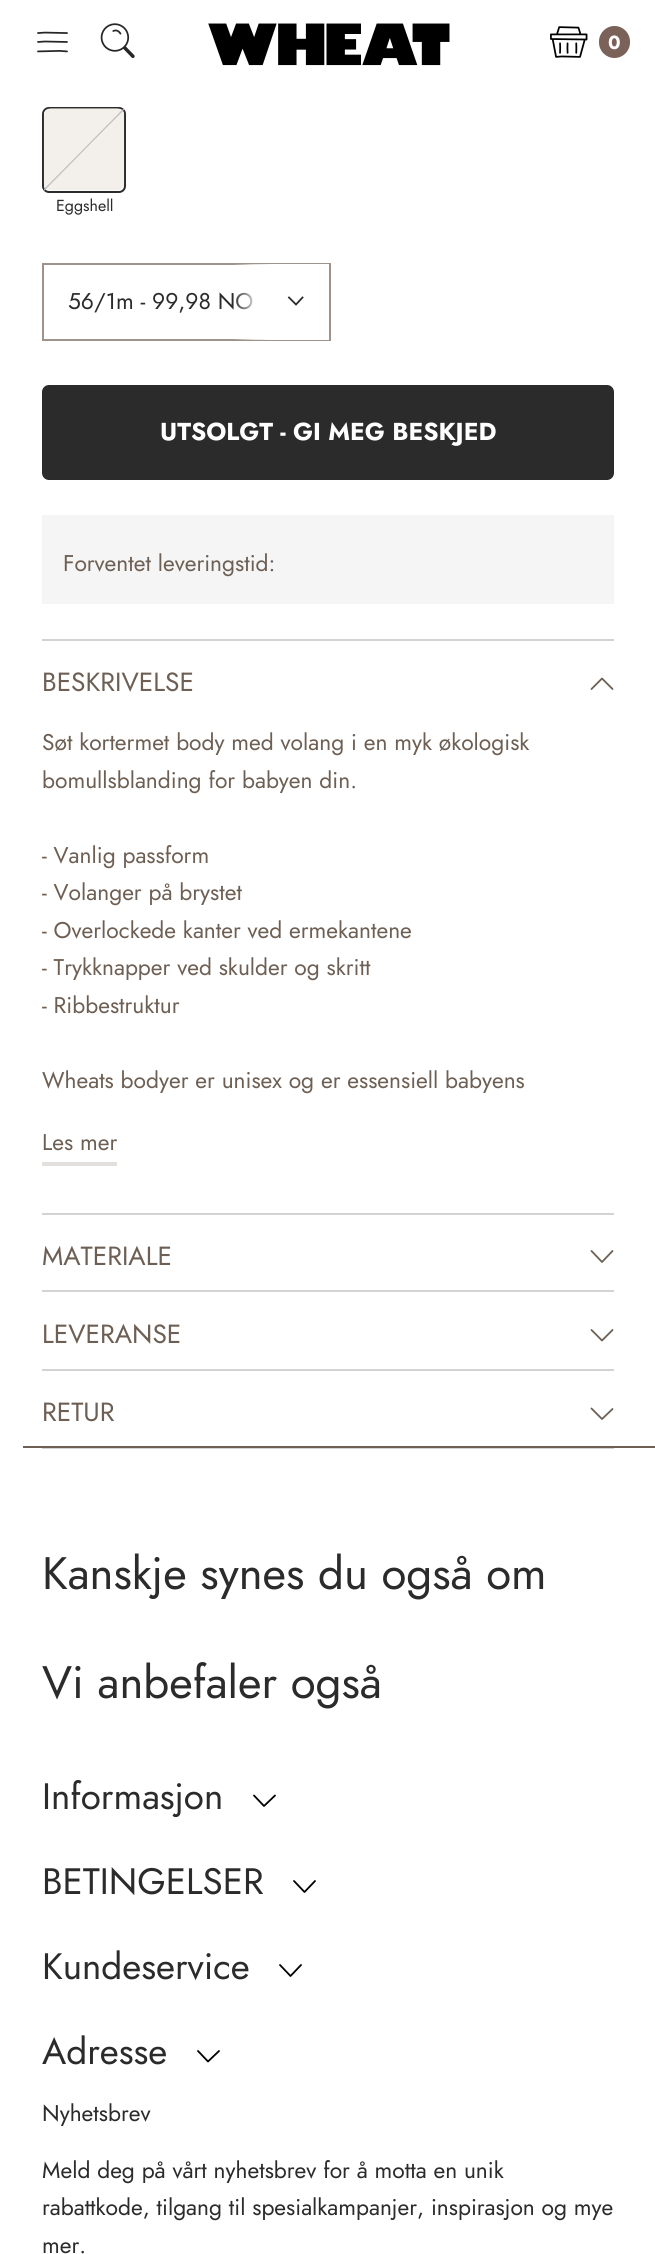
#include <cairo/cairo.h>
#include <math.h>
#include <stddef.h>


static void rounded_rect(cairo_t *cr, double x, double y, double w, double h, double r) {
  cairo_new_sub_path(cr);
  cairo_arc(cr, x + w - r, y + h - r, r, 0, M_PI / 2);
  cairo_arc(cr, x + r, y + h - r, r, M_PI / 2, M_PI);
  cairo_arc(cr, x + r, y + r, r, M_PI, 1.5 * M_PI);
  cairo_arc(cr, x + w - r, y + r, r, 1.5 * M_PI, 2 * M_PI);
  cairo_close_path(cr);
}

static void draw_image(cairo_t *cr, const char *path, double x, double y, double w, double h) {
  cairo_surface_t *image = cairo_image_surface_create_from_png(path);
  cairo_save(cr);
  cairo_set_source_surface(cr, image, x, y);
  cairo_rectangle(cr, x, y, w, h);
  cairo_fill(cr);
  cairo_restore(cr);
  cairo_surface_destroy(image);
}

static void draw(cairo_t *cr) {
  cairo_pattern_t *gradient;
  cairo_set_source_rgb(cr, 1, 1, 1);
  cairo_paint(cr);
  draw_image(cr, "images/1.png", 37, 31, 31, 22);
  draw_image(cr, "images/2.png", 100, 23, 35, 35);
  draw_image(cr, "images/3.png", 208, 23, 242, 43);
  draw_image(cr, "images/4.png", 550, 26, 38, 32);
  cairo_set_source_rgb(cr, 123 / 255.0, 98 / 255.0, 89 / 255.0);
  rounded_rect(cr, 599, 26, 31, 32, 15.5);
  cairo_fill(cr);
  rounded_rect(cr, 43, 108, 82, 84, 6);
  cairo_set_source_rgb(cr, 43 / 255.0, 43 / 255.0, 43 / 255.0);
  cairo_stroke(cr);
  draw_image(cr, "images/5.png", 43, 108, 82, 83);
  gradient = cairo_pattern_create_linear(125, 190, 43, 109);
  cairo_pattern_add_color_stop_rgba(gradient, 0, 221 / 255.0, 221 / 255.0, 221 / 255.0, 0);
  cairo_pattern_add_color_stop_rgba(gradient, 0.49, 187 / 255.0, 187 / 255.0, 187 / 255.0, 0);
  cairo_pattern_add_color_stop_rgba(gradient, 0.5, 187 / 255.0, 187 / 255.0, 187 / 255.0, 1);
  cairo_pattern_add_color_stop_rgba(gradient, 0.51, 187 / 255.0, 187 / 255.0, 187 / 255.0, 0);
  cairo_pattern_add_color_stop_rgba(gradient, 1, 221 / 255.0, 221 / 255.0, 221 / 255.0, 0);
  cairo_set_source(cr, gradient);
  cairo_pattern_destroy(gradient);
  cairo_rectangle(cr, 44, 109, 80, 82);
  cairo_fill(cr);
  cairo_rectangle(cr, 43, 264, 287, 76);
  cairo_set_source_rgb(cr, 159 / 255.0, 147 / 255.0, 137 / 255.0);
  cairo_stroke(cr);
  cairo_set_source_rgb(cr, 43 / 255.0, 43 / 255.0, 43 / 255.0);
  rounded_rect(cr, 42, 385, 572, 95, 7);
  cairo_fill(cr);
  cairo_set_source_rgb(cr, 245 / 255.0, 245 / 255.0, 245 / 255.0);
  cairo_rectangle(cr, 42, 515, 572, 89);
  cairo_fill(cr);
  cairo_set_source_rgb(cr, 211 / 255.0, 211 / 255.0, 211 / 255.0);
  cairo_rectangle(cr, 42, 639, 572, 2);
  cairo_fill(cr);
  cairo_new_path(cr);
  cairo_move_to(cr, 591.5, 689);
  cairo_line_to(cr, 602, 678.5);
  cairo_line_to(cr, 612.5, 689);
  cairo_set_source_rgb(cr, 109 / 255.0, 95 / 255.0, 83 / 255.0);
  cairo_set_line_width(cr, 1.8);
  cairo_set_line_cap(cr, CAIRO_LINE_CAP_ROUND);
  cairo_set_line_join(cr, CAIRO_LINE_JOIN_ROUND);
  cairo_stroke(cr);
  cairo_set_source_rgb(cr, 226 / 255.0, 223 / 255.0, 220 / 255.0);
  cairo_rectangle(cr, 42, 1162, 75, 4);
  cairo_fill(cr);
  cairo_set_source_rgb(cr, 211 / 255.0, 211 / 255.0, 211 / 255.0);
  cairo_rectangle(cr, 42, 1213, 572, 2);
  cairo_fill(cr);
  cairo_new_path(cr);
  cairo_move_to(cr, 612.5, 1251);
  cairo_line_to(cr, 602, 1262);
  cairo_line_to(cr, 591.5, 1251);
  cairo_set_source_rgb(cr, 109 / 255.0, 95 / 255.0, 83 / 255.0);
  cairo_stroke(cr);
  cairo_set_source_rgb(cr, 211 / 255.0, 211 / 255.0, 211 / 255.0);
  cairo_rectangle(cr, 42, 1290, 572, 2);
  cairo_fill(cr);
  cairo_new_path(cr);
  cairo_move_to(cr, 612.5, 1330);
  cairo_line_to(cr, 602, 1340.5);
  cairo_line_to(cr, 591.5, 1330);
  cairo_set_source_rgb(cr, 109 / 255.0, 95 / 255.0, 83 / 255.0);
  cairo_stroke(cr);
  cairo_set_source_rgb(cr, 211 / 255.0, 211 / 255.0, 211 / 255.0);
  cairo_rectangle(cr, 42, 1369, 572, 2);
  cairo_fill(cr);
  cairo_rectangle(cr, 42, 1448, 572, 1);
  cairo_fill(cr);
  cairo_new_path(cr);
  cairo_move_to(cr, 612.5, 1409);
  cairo_line_to(cr, 602, 1419);
  cairo_line_to(cr, 591.5, 1408.5);
  cairo_set_source_rgb(cr, 109 / 255.0, 95 / 255.0, 83 / 255.0);
  cairo_stroke(cr);
  cairo_rectangle(cr, 23, 1446, 632, 2);
  cairo_fill(cr);
  cairo_new_path(cr);
  cairo_move_to(cr, 275, 1795.5);
  cairo_line_to(cr, 264, 1806);
  cairo_line_to(cr, 254, 1795.5);
  cairo_set_source_rgb(cr, 0, 0, 0);
  cairo_stroke(cr);
  cairo_new_path(cr);
  cairo_move_to(cr, 315, 1881);
  cairo_line_to(cr, 304.5, 1892);
  cairo_line_to(cr, 294, 1881);
  cairo_stroke(cr);
  cairo_new_path(cr);
  cairo_move_to(cr, 301, 1965);
  cairo_line_to(cr, 290.5, 1976);
  cairo_line_to(cr, 280, 1965);
  cairo_stroke(cr);
  cairo_new_path(cr);
  cairo_move_to(cr, 219, 2051);
  cairo_line_to(cr, 208, 2061.5);
  cairo_line_to(cr, 198, 2051);
  cairo_stroke(cr);
  cairo_select_font_face(cr, "Jost", CAIRO_FONT_SLANT_NORMAL, CAIRO_FONT_WEIGHT_BOLD);
  cairo_set_font_size(cr, 19);
  cairo_set_source_rgb(cr, 1, 1, 1);
  cairo_move_to(cr, 608, 49);
  cairo_show_text(cr, "0");
  cairo_select_font_face(cr, "Jost", CAIRO_FONT_SLANT_NORMAL, CAIRO_FONT_WEIGHT_NORMAL);
  cairo_set_font_size(cr, 16);
  cairo_set_source_rgb(cr, 43 / 255.0, 43 / 255.0, 43 / 255.0);
  cairo_move_to(cr, 56, 211);
  cairo_show_text(cr, "Eggshell");
  cairo_set_font_size(cr, 22.75);
  cairo_move_to(cr, 68, 309);
  cairo_show_text(cr, "56/1m - 99,98 NO");
  gradient = cairo_pattern_create_linear(233, 302, 329, 302);
  cairo_pattern_add_color_stop_rgba(gradient, 0, 1, 1, 1, 0);
  cairo_pattern_add_color_stop_rgba(gradient, 0.2, 1, 1, 1, 0.7);
  cairo_pattern_add_color_stop_rgba(gradient, 0.4, 1, 1, 1, 1);
  cairo_set_source(cr, gradient);
  cairo_pattern_destroy(gradient);
  cairo_rectangle(cr, 234, 264, 95, 76);
  cairo_fill(cr);
  cairo_new_path(cr);
  cairo_move_to(cr, 302.5, 297.5);
  cairo_line_to(cr, 296, 304.5);
  cairo_line_to(cr, 289, 297.5);
  cairo_set_source_rgb(cr, 43 / 255.0, 43 / 255.0, 43 / 255.0);
  cairo_set_line_cap(cr, CAIRO_LINE_CAP_SQUARE);
  cairo_set_line_join(cr, CAIRO_LINE_JOIN_MITER);
  cairo_stroke(cr);
  cairo_select_font_face(cr, "Jost", CAIRO_FONT_SLANT_NORMAL, CAIRO_FONT_WEIGHT_BOLD);
  cairo_set_font_size(cr, 24.5);
  cairo_set_source_rgb(cr, 1, 1, 1);
  cairo_move_to(cr, 160, 440);
  cairo_show_text(cr, "UTSOLGT - GI MEG BESKJED");
  cairo_select_font_face(cr, "Jost", CAIRO_FONT_SLANT_NORMAL, CAIRO_FONT_WEIGHT_NORMAL);
  cairo_set_font_size(cr, 22.75);
  cairo_set_source_rgb(cr, 109 / 255.0, 95 / 255.0, 83 / 255.0);
  cairo_move_to(cr, 63, 571);
  cairo_show_text(cr, "Forventet leveringstid:");
  cairo_set_font_size(cr, 26.25);
  cairo_move_to(cr, 42, 691);
  cairo_show_text(cr, "BESKRIVELSE");
  cairo_set_font_size(cr, 22.75);
  cairo_move_to(cr, 42, 750);
  cairo_show_text(cr, "Søt kortermet body med volang i en myk økologisk");
  cairo_move_to(cr, 42, 788);
  cairo_show_text(cr, "bomullsblanding for babyen din.");
  cairo_move_to(cr, 42, 863);
  cairo_show_text(cr, "- Vanlig passform");
  cairo_move_to(cr, 42, 900);
  cairo_show_text(cr, "- Volanger på brystet");
  cairo_move_to(cr, 42, 938);
  cairo_show_text(cr, "- Overlockede kanter ved ermekantene");
  cairo_move_to(cr, 42, 975);
  cairo_show_text(cr, "- Trykknapper ved skulder og skritt");
  cairo_move_to(cr, 42, 1013);
  cairo_show_text(cr, "- Ribbestruktur");
  cairo_move_to(cr, 42, 1088);
  cairo_show_text(cr, "Wheats bodyer er unisex og er essensiell babyens");
  cairo_move_to(cr, 42, 1150);
  cairo_show_text(cr, "Les mer");
  cairo_set_font_size(cr, 26.25);
  cairo_move_to(cr, 42, 1265);
  cairo_show_text(cr, "MATERIALE");
  cairo_move_to(cr, 42, 1343);
  cairo_show_text(cr, "LEVERANSE");
  cairo_move_to(cr, 42, 1421);
  cairo_show_text(cr, "RETUR");
  cairo_set_font_size(cr, 45.5);
  cairo_set_source_rgb(cr, 43 / 255.0, 43 / 255.0, 43 / 255.0);
  cairo_move_to(cr, 42, 1589);
  cairo_show_text(cr, "Kanskje synes du også om");
  cairo_move_to(cr, 42, 1698);
  cairo_show_text(cr, "Vi anbefaler også");
  cairo_set_font_size(cr, 36.75);
  cairo_move_to(cr, 42, 1809);
  cairo_show_text(cr, "Informasjon");
  cairo_move_to(cr, 42, 1894);
  cairo_show_text(cr, "BETINGELSER");
  cairo_move_to(cr, 42, 1979);
  cairo_show_text(cr, "Kundeservice");
  cairo_move_to(cr, 42, 2064);
  cairo_show_text(cr, "Adresse");
  cairo_set_font_size(cr, 22.75);
  cairo_move_to(cr, 42, 2121);
  cairo_show_text(cr, "Nyhetsbrev");
  cairo_move_to(cr, 42, 2178);
  cairo_show_text(cr, "Meld deg på vårt nyhetsbrev for å motta en unik");
  cairo_move_to(cr, 42, 2215);
  cairo_show_text(cr, "rabattkode, tilgang til spesialkampanjer, inspirasjon og mye");
  cairo_move_to(cr, 42, 2253);
  cairo_show_text(cr, "mer.");
}

int main(void) {
  cairo_surface_t *surface = cairo_image_surface_create(CAIRO_FORMAT_RGB24, 655, 2254);
  cairo_t *cr = cairo_create(surface);
  cairo_font_options_t *options = cairo_font_options_create();
  cairo_font_options_set_hint_metrics(options, CAIRO_HINT_METRICS_OFF);
  cairo_font_options_set_hint_style(options, CAIRO_HINT_STYLE_NONE);
  cairo_set_font_options(cr, options);
  cairo_set_miter_limit(cr, 4);
  draw(cr);
  cairo_surface_write_to_png(surface, "out.png");
  cairo_font_options_destroy(options);
  cairo_destroy(cr);
  cairo_surface_destroy(surface);
  return 0;
}
